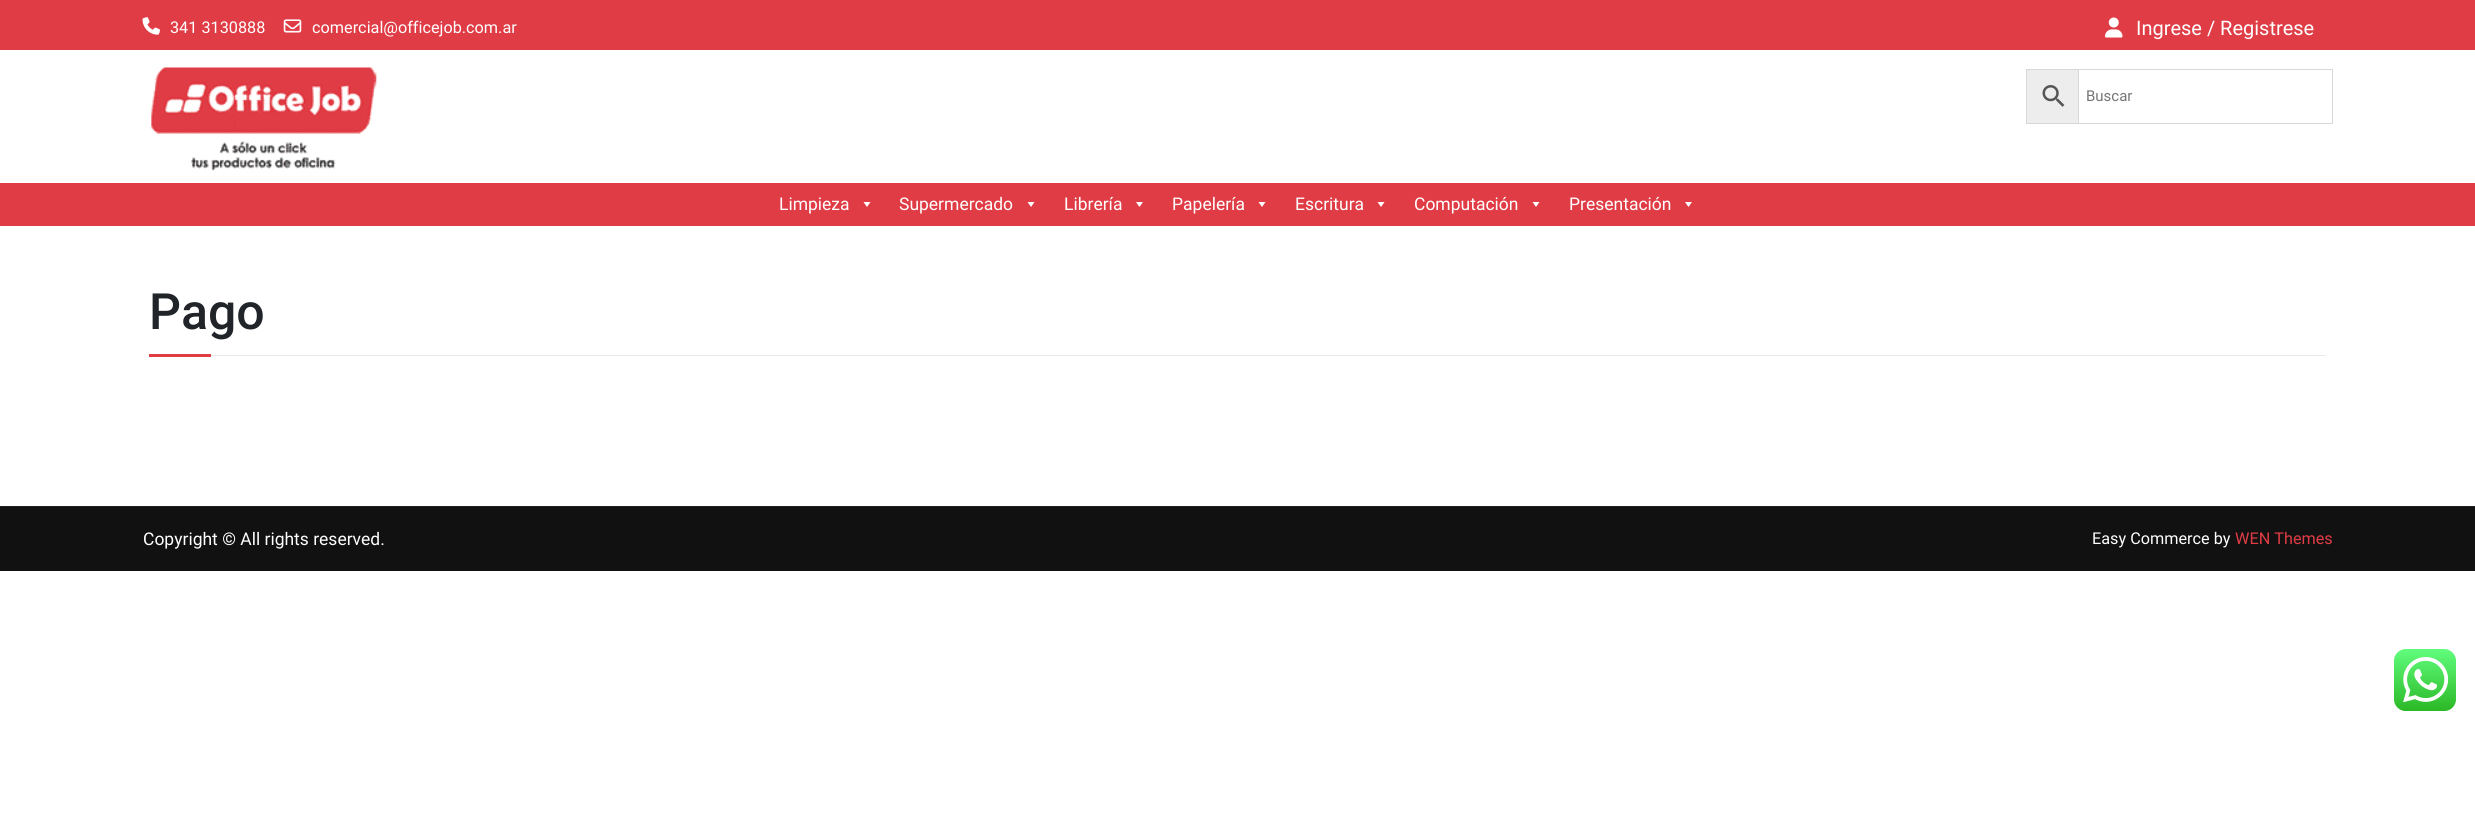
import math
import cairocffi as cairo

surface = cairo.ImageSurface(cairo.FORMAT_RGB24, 2475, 836)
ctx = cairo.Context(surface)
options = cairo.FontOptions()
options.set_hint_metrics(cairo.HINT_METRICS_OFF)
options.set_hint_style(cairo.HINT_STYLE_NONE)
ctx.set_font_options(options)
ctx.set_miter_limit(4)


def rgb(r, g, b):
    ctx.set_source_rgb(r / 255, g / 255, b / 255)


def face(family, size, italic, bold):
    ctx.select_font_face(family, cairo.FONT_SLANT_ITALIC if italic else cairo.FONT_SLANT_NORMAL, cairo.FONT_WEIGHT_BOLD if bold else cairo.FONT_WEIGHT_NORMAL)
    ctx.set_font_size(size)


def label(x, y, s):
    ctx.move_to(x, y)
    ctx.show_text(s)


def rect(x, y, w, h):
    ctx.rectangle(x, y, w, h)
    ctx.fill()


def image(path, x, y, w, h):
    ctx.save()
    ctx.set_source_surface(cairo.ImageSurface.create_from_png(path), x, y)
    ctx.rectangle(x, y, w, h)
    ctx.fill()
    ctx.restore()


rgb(255, 255, 255)
ctx.paint()
rgb(224, 60, 69)
rect(0, 0, 2475, 50)
image('image0.png', 142, 17, 18, 18)
face('Roboto', 16.25, 0, 0)
rgb(255, 255, 255)
label(170, 33, '341 3130888')
image('image1.png', 283, 19, 19, 14)
label(312, 33, 'comercial@officejob.com.ar')
image('image2.png', 2105, 17, 18, 21)
face('Roboto', 20, 0, 0)
label(2136, 35, 'Ingrese / Registrese')
image('image3.png', 151, 67, 226, 104)
rgb(237, 237, 237)
ctx.rectangle(2026.5, 69.5, 52, 54)
ctx.fill_preserve()
rgb(216, 216, 216)
ctx.set_line_width(1)
ctx.stroke()
image('image4.png', 2042, 85, 23, 22)
ctx.rectangle(2078.5, 69.5, 254, 54)
ctx.stroke()
face('Roboto', 15, 0, 0)
rgb(117, 117, 117)
label(2086, 101, 'Buscar')
rgb(224, 60, 69)
rect(0, 183, 2475, 43)
face('Roboto', 17.5, 0, 0)
rgb(255, 255, 255)
label(779, 210, 'Limpieza')
ctx.new_path()
ctx.move_to(870.5, 202)
ctx.line_to(867, 207)
ctx.line_to(863.5, 202)
ctx.close_path()
ctx.fill()
label(899, 210, 'Supermercado')
ctx.new_path()
ctx.move_to(1034.5, 202)
ctx.line_to(1031, 207)
ctx.line_to(1027.5, 202)
ctx.close_path()
ctx.fill()
label(1064, 210, 'Librería')
ctx.new_path()
ctx.move_to(1143, 202)
ctx.line_to(1139.5, 207)
ctx.line_to(1136, 202)
ctx.close_path()
ctx.fill()
label(1172, 210, 'Papelería')
ctx.new_path()
ctx.move_to(1265.5, 202)
ctx.line_to(1262, 207)
ctx.line_to(1258.5, 202)
ctx.close_path()
ctx.fill()
label(1295, 210, 'Escritura')
ctx.new_path()
ctx.move_to(1384.5, 202)
ctx.line_to(1381, 207)
ctx.line_to(1377.5, 202)
ctx.close_path()
ctx.fill()
label(1414, 210, 'Computación')
ctx.new_path()
ctx.move_to(1539.5, 202)
ctx.line_to(1536, 207)
ctx.line_to(1532.5, 202)
ctx.close_path()
ctx.fill()
label(1569, 210, 'Presentación')
ctx.new_path()
ctx.move_to(1692, 202)
ctx.line_to(1688.5, 207)
ctx.line_to(1685, 202)
ctx.close_path()
ctx.fill()
rgb(235, 233, 235)
rect(211, 355, 2115, 1)
face('Roboto Medium', 50, 0, 0)
rgb(33, 37, 41)
label(149, 329, 'Pago')
rgb(224, 60, 69)
rect(149, 354, 62, 3)
rgb(17, 17, 17)
rect(0, 507, 2475, 64)
rgb(32, 32, 32)
rect(0, 506, 2475, 1)
face('Roboto', 17.5, 0, 0)
rgb(255, 255, 255)
label(143, 545, 'Copyright © All rights reserved.')
face('Roboto', 16.25, 0, 0)
label(2092, 544, 'Easy Commerce by')
rgb(224, 60, 69)
label(2235, 544, 'WEN Themes')
image('image5.png', 2394, 649, 62, 62)
surface.write_to_png('render.png')
